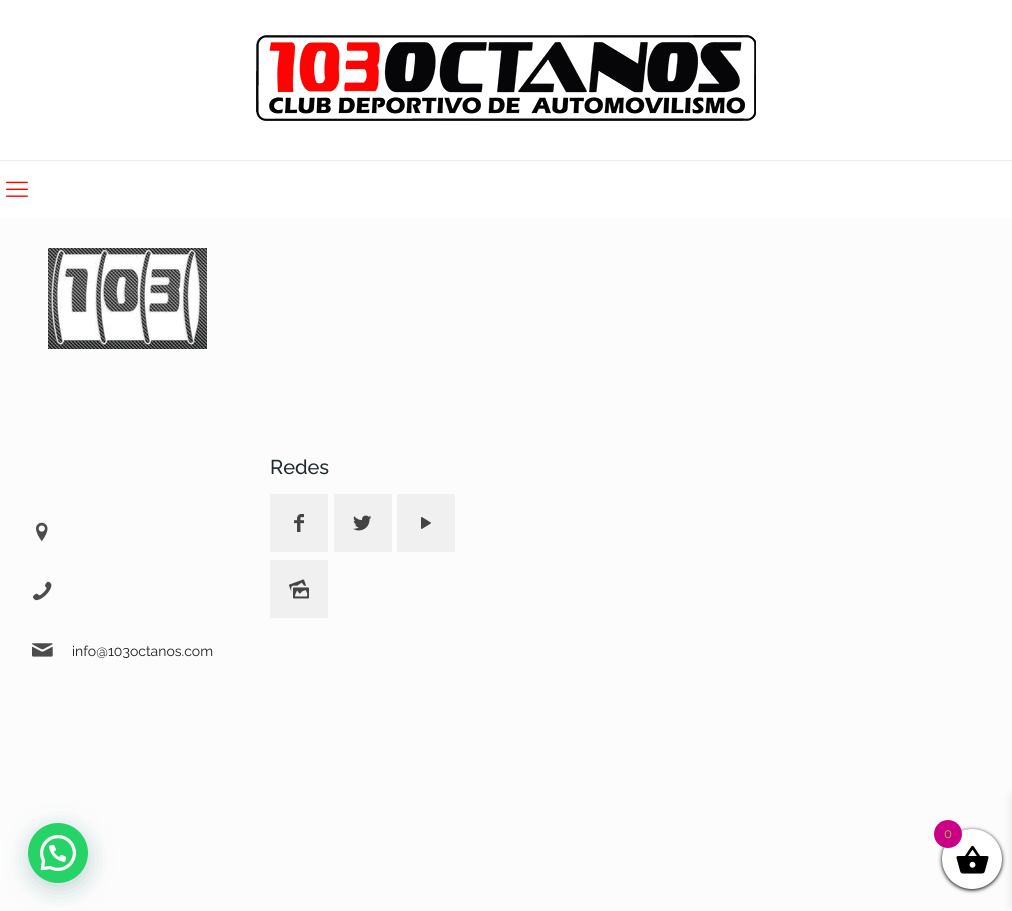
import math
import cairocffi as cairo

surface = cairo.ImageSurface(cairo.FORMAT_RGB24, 1012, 911)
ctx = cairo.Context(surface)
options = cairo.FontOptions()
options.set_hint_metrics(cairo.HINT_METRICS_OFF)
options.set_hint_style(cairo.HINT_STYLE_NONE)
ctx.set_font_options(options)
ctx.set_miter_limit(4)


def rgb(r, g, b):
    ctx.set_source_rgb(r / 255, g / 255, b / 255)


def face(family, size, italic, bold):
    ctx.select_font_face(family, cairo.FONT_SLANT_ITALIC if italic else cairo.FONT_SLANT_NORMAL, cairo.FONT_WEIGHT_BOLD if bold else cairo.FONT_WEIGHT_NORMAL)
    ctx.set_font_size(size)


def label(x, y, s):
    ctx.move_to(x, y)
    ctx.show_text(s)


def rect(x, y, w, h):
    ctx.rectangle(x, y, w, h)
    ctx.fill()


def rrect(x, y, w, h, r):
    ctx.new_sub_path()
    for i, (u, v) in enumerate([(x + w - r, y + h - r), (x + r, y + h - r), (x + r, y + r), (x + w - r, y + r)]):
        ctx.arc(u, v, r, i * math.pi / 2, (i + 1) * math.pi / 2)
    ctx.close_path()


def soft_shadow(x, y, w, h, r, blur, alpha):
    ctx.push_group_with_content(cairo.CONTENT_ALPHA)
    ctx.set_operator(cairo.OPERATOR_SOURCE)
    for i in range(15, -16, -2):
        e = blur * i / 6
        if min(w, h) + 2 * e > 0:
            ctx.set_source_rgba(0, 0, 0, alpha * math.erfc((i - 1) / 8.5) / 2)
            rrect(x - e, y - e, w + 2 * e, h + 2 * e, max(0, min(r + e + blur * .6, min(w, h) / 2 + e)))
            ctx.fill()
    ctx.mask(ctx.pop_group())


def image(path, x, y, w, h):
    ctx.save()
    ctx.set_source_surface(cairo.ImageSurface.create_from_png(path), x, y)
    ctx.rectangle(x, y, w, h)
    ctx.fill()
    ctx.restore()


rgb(252, 252, 252)
ctx.paint()
rgb(255, 255, 255)
rect(0, 0, 1012, 218)
rgb(235, 235, 235)
rect(0, 160, 1012, 1)
image('image0.png', 256, 35, 500, 86)
image('image1.png', 6, 181, 22, 16)
image('image2.png', 48, 248, 159, 101)
face('Raleway Medium', 20, 0, 0)
rgb(32, 41, 44)
label(270, 474, 'Redes')
rgb(240, 240, 240)
rect(270, 494, 58, 58)
image('image3.png', 294, 514, 10, 18)
rect(334, 494, 58, 58)
image('image4.png', 353, 515, 19, 16)
rect(397, 494, 58, 58)
image('image5.png', 421, 517, 10, 12)
rect(270, 560, 58, 58)
image('image6.png', 289, 579, 20, 20)
image('image7.png', 36, 522, 12, 19)
image('image8.png', 33, 581, 19, 20)
image('image9.png', 32, 643, 21, 14)
face('Raleway', 14, 0, 0)
rgb(30, 30, 30)
label(72, 656, 'info@103octanos.com')
rgb(7, 94, 84)
soft_shadow(29, 829, 60, 60, 30, 12, 0.24)
rgb(37, 211, 102)
ctx.arc(58, 853, 30, 0, 2 * math.pi)
ctx.fill()
image('image10.png', 40, 835, 36, 36)
rgb(0, 0, 0)
soft_shadow(942, 830, 60, 60, 30, 2, 1)
soft_shadow(1012, 797, 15, 109, 0, 5, 0.1)
rgb(255, 255, 255)
ctx.arc(972, 859, 30, 0, 2 * math.pi)
ctx.fill()
image('image11.png', 956, 845, 33, 29)
rgb(204, 0, 134)
ctx.arc(948, 834, 14, 0, 2 * math.pi)
ctx.fill()
face('Raleway', 13, 0, 0)
rgb(129, 215, 66)
label(944, 838, '0')
surface.write_to_png('render.png')
